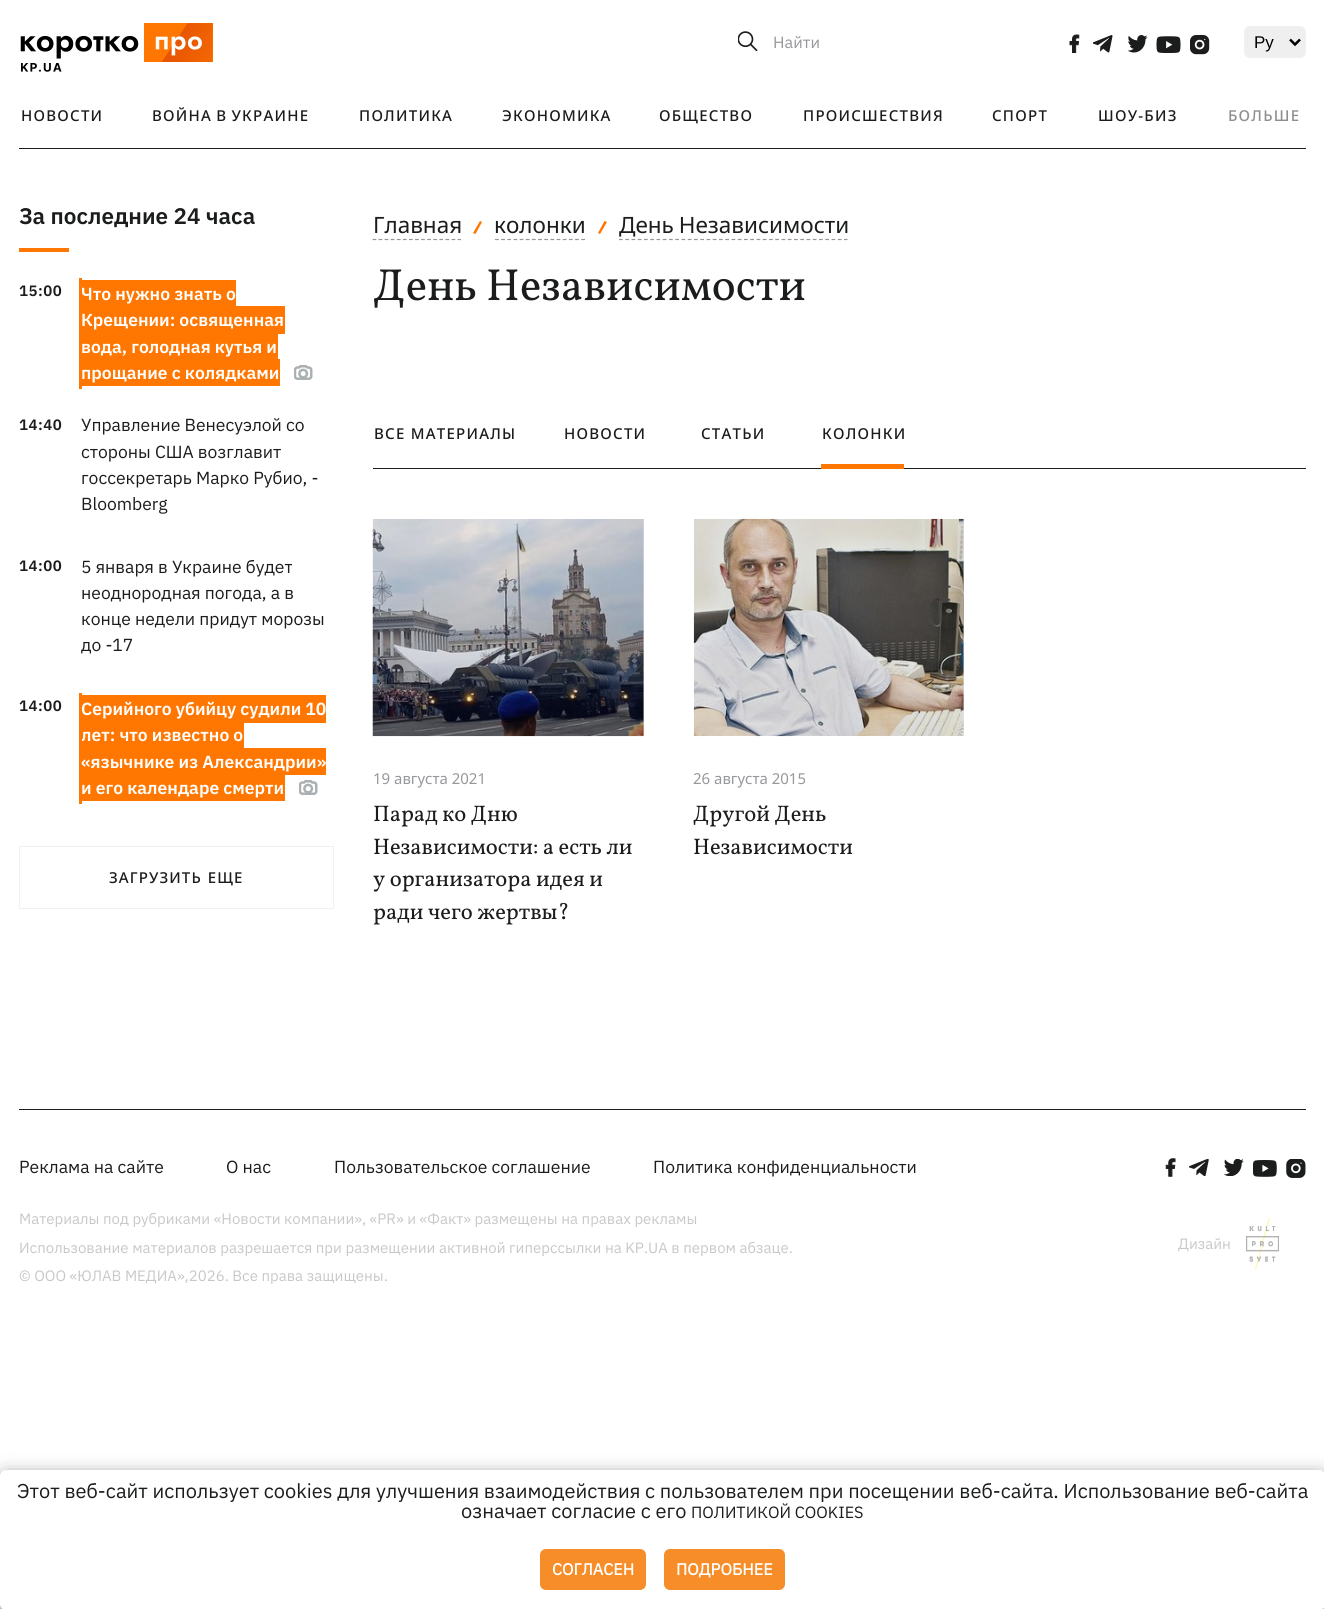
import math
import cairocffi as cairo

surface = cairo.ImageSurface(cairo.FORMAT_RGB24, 1324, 1609)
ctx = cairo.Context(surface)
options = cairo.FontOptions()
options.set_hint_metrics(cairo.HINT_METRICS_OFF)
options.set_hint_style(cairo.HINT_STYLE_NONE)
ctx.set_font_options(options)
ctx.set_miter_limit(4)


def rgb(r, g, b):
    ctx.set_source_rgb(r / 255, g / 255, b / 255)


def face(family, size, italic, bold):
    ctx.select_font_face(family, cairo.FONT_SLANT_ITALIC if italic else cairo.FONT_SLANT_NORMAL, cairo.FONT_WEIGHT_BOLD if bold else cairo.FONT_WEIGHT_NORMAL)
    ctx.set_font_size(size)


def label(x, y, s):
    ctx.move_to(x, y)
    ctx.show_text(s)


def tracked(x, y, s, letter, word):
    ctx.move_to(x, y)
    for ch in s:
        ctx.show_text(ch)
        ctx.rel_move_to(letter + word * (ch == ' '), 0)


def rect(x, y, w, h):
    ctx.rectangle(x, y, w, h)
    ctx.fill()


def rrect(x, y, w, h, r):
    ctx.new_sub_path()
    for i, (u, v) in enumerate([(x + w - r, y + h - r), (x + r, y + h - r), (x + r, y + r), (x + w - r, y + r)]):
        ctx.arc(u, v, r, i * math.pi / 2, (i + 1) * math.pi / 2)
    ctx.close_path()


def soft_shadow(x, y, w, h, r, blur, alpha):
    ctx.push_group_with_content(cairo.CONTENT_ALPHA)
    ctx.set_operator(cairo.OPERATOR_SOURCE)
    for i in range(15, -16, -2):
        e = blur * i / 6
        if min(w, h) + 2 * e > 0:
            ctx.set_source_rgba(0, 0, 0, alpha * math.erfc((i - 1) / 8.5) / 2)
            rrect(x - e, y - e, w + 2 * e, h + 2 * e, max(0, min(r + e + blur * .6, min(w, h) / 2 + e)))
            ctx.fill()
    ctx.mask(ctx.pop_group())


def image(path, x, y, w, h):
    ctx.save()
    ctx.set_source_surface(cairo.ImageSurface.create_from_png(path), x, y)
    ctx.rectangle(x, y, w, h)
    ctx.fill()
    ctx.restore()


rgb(255, 255, 255)
ctx.paint()
rgb(230, 230, 230)
rect(963, 519, 1, 217)
rect(643, 519, 1, 217)
image('image0.png', 20, 23, 193, 49)
image('image1.png', 738, 31, 20, 20)
face('IBM Plex Sans', 16.25, 0, 0)
rgb(150, 151, 155)
label(773, 48, 'Найти')
image('image2.png', 1069, 34, 11, 19)
image('image3.png', 1093, 35, 20, 18)
image('image4.png', 1128, 35, 20, 18)
image('image5.png', 1156, 36, 25, 17)
image('image6.png', 1190, 35, 20, 20)
rgb(239, 239, 239)
rrect(1244.5, 26.5, 61, 31, 5.5)
ctx.fill_preserve()
rgb(240, 241, 242)
ctx.set_line_width(1)
ctx.stroke()
ctx.new_path()
ctx.move_to(1290, 39.5)
ctx.line_to(1295, 44.5)
ctx.line_to(1300, 39.5)
rgb(0, 0, 0)
ctx.set_line_width(2.5)
ctx.stroke()
face('Liberation Sans', 17, 0, 0)
label(1254, 48, 'Ру')
rgb(27, 28, 28)
rect(19, 148, 1287, 1)
face('Noto Sans Medium', 15, 0, 0)
tracked(21, 121, 'НОВОСТИ', 1.25, 0)
tracked(152, 121, 'ВОЙНА В УКРАИНЕ', 1.25, -1)
tracked(359, 121, 'ПОЛИТИКА', 1.25, 0)
tracked(502, 121, 'ЭКОНОМИКА', 1.25, 0)
tracked(659, 121, 'ОБЩЕСТВО', 1.25, 0)
tracked(803, 121, 'ПРОИСШЕСТВИЯ', 1.25, 0)
tracked(992, 121, 'СПОРТ', 1.25, 0)
tracked(1098, 121, 'ШОУ-БИЗ', 1.25, 0)
rgb(141, 142, 142)
tracked(1228, 121, 'БОЛЬШЕ', 1.25, 0)
face('IBM Plex Sans SemiBold', 22.5, 0, 0)
rgb(27, 28, 28)
label(19, 224, 'За последние 24 часа')
rgb(255, 119, 0)
rect(19, 248, 50, 4)
face('IBM Plex Sans SemiBold', 15, 0, 0)
rgb(27, 28, 28)
tracked(19, 296, '15:00', 0.5, 0)
rgb(255, 119, 0)
rect(82, 280, 154, 26)
face('IBM Plex Sans SemiBold', 17.5, 0, 0)
rgb(255, 255, 255)
label(81, 300, 'Что нужно знать о')
rgb(255, 119, 0)
rect(82, 306, 203, 28)
rgb(255, 255, 255)
label(81, 326, 'Крещении: освященная')
rgb(255, 119, 0)
rect(79, 278, 3, 111)
rect(82, 334, 196, 25)
rgb(255, 255, 255)
label(81, 353, 'вода, голодная кутья и')
rgb(255, 119, 0)
rect(82, 359, 198, 27)
rgb(255, 255, 255)
label(81, 379, 'прощание с колядками')
image('image7.png', 294, 365, 19, 15)
face('IBM Plex Sans SemiBold', 15, 0, 0)
rgb(27, 28, 28)
tracked(19, 430, '14:40', 0.5, 0)
face('IBM Plex Sans', 17.5, 0, 0)
label(81, 431, 'Управление Венесуэлой со')
label(81, 458, 'стороны США возглавит')
label(81, 484, 'госсекретарь Марко Рубио, -')
label(81, 510, 'Bloomberg')
face('IBM Plex Sans SemiBold', 15, 0, 0)
tracked(19, 571, '14:00', 0.5, 0)
face('IBM Plex Sans', 17.5, 0, 0)
label(81, 573, '5 января в Украине будет')
label(81, 599, 'неоднородная погода, а в')
label(81, 625, 'конце недели придут морозы')
label(81, 651, 'до -17')
face('IBM Plex Sans SemiBold', 15, 0, 0)
tracked(19, 711, '14:00', 0.5, 0)
rgb(255, 119, 0)
rect(79, 693, 3, 111)
rect(82, 695, 244, 28)
rect(82, 723, 162, 25)
rect(82, 748, 244, 27)
rect(82, 775, 203, 26)
face('IBM Plex Sans SemiBold', 17.5, 0, 0)
rgb(255, 255, 255)
label(81, 715, 'Серийного убийцу судили 10')
label(81, 741, 'лет: что известно о')
rgb(255, 119, 0)
rect(81, 739, 1, 3)
rgb(255, 255, 255)
label(81, 768, '«язычнике из Александрии»')
label(81, 794, 'и его календаре смерти')
image('image7.png', 299, 780, 19, 15)
ctx.rectangle(19.5, 846.5, 314, 62)
rgb(240, 241, 242)
ctx.set_line_width(1)
ctx.stroke()
face('Noto Sans Medium', 15, 0, 0)
rgb(27, 28, 28)
tracked(109, 883, 'ЗАГРУЗИТЬ ЕЩЕ', 1.1, 1)
face('Noto Sans', 22.5, 0, 0)
label(373, 233, 'Главная')
ctx.new_path()
ctx.move_to(372.5, 239.5)
ctx.line_to(461, 239.5)
rgb(150, 151, 155)
ctx.set_line_width(1.2)
ctx.set_dash([3.75, 2.33])
ctx.stroke()
rgb(255, 119, 0)
ctx.new_path()
ctx.move_to(473, 233)
ctx.line_to(480, 221)
ctx.line_to(482, 222)
ctx.line_to(475.5, 234)
ctx.close_path()
ctx.fill()
rgb(27, 28, 28)
label(494, 233, 'колонки')
ctx.new_path()
ctx.move_to(495, 239.5)
ctx.line_to(585, 239.5)
rgb(150, 151, 155)
ctx.set_dash([3.75, 2.41])
ctx.stroke()
rgb(255, 119, 0)
ctx.new_path()
ctx.move_to(598, 233)
ctx.line_to(604.5, 221)
ctx.line_to(607, 222)
ctx.line_to(600, 234)
ctx.close_path()
ctx.fill()
rgb(27, 28, 28)
tracked(619, 233, 'День Независимости', 0, -1)
ctx.new_path()
ctx.move_to(619, 239.5)
ctx.line_to(847.5, 239.5)
rgb(150, 151, 155)
ctx.set_dash([3.75, 2.5])
ctx.stroke()
face('Vollkorn', 45, 0, 0)
rgb(27, 28, 28)
label(373, 300, 'День Независимости')
face('Noto Sans Medium', 15, 0, 0)
tracked(374, 439, 'ВСЕ МАТЕРИАЛЫ', 1.25, 0)
tracked(564, 439, 'НОВОСТИ', 1.25, 0)
tracked(701, 439, 'СТАТЬИ', 1.25, 0)
tracked(822, 439, 'КОЛОНКИ', 1.25, 0)
rect(373, 468, 933, 1)
rgb(255, 119, 0)
rect(821, 464, 83, 5)
image('image8.png', 372, 519, 272, 218)
face('Noto Sans', 15, 0, 0)
rgb(150, 151, 155)
label(373, 784, '19 августа 2021')
face('Vollkorn', 22.5, 0, 0)
rgb(27, 28, 28)
label(373, 821, 'Парад ко Дню')
label(373, 854, 'Независимости: а есть ли')
label(373, 886, 'у организатора идея и')
label(373, 919, 'ради чего жертвы?')
image('image9.png', 693, 518, 271, 219)
face('Noto Sans', 15, 0, 0)
rgb(150, 151, 155)
label(693, 784, '26 августа 2015')
face('Vollkorn', 22.5, 0, 0)
rgb(27, 28, 28)
label(693, 821, 'Другой День')
label(693, 854, 'Независимости')
rect(19, 1109, 1287, 1)
face('IBM Plex Sans', 17.5, 0, 0)
label(19, 1173, 'Реклама на сайте')
label(226, 1173, 'О нас')
label(334, 1173, 'Пользовательское соглашение')
label(653, 1173, 'Политика конфиденциальности')
image('image10.png', 1165, 1158, 11, 19)
image('image11.png', 1189, 1159, 20, 17)
image('image12.png', 1224, 1159, 20, 17)
image('image13.png', 1253, 1160, 24, 17)
image('image14.png', 1286, 1159, 20, 19)
face('IBM Plex Sans', 15, 0, 0)
rgb(200, 200, 200)
label(19, 1224, 'Материалы под рубриками «Новости компании», «PR» и «Факт» размещены на правах рекламы')
label(19, 1253, 'Использование материалов разрешается при размещении активной гиперссылки на KP.UA в первом абзаце.')
label(19, 1281, '© ООО «ЮЛАВ МЕДИА»,2026. Все права защищены.')
label(1178, 1249, 'Дизайн')
image('image15.png', 1246, 1217, 33, 54)
rgb(0, 0, 0)
soft_shadow(0, 1476, 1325, 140, 6, 9.5, 0.5)
rgb(255, 255, 255)
rrect(0, 1470, 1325, 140, 6)
ctx.fill()
face('IBM Plex Sans', 20, 0, 0)
rgb(27, 28, 28)
label(17, 1498, 'Этот веб-сайт использует cookies для улучшения взаимодействия с пользователем при посещении веб-сайта. Использование веб-сайта')
label(461, 1518, 'означает согласие с его')
face('IBM Plex Sans', 16.25, 0, 0)
label(691, 1518, 'ПОЛИТИКОЙ COOKIES')
rgb(246, 141, 41)
rrect(541.5, 1550.5, 103, 38, 4.5)
ctx.fill_preserve()
ctx.set_line_width(3)
ctx.set_dash([])
ctx.stroke()
face('IBM Plex Sans', 16.25, 0, 1)
rgb(255, 255, 255)
label(552, 1575, 'СОГЛАСЕН')
rgb(246, 141, 41)
rrect(665.5, 1550.5, 118, 38, 4.5)
ctx.fill_preserve()
ctx.stroke()
rgb(255, 255, 255)
label(676, 1575, 'ПОДРОБНЕЕ')
surface.write_to_png('render.png')
